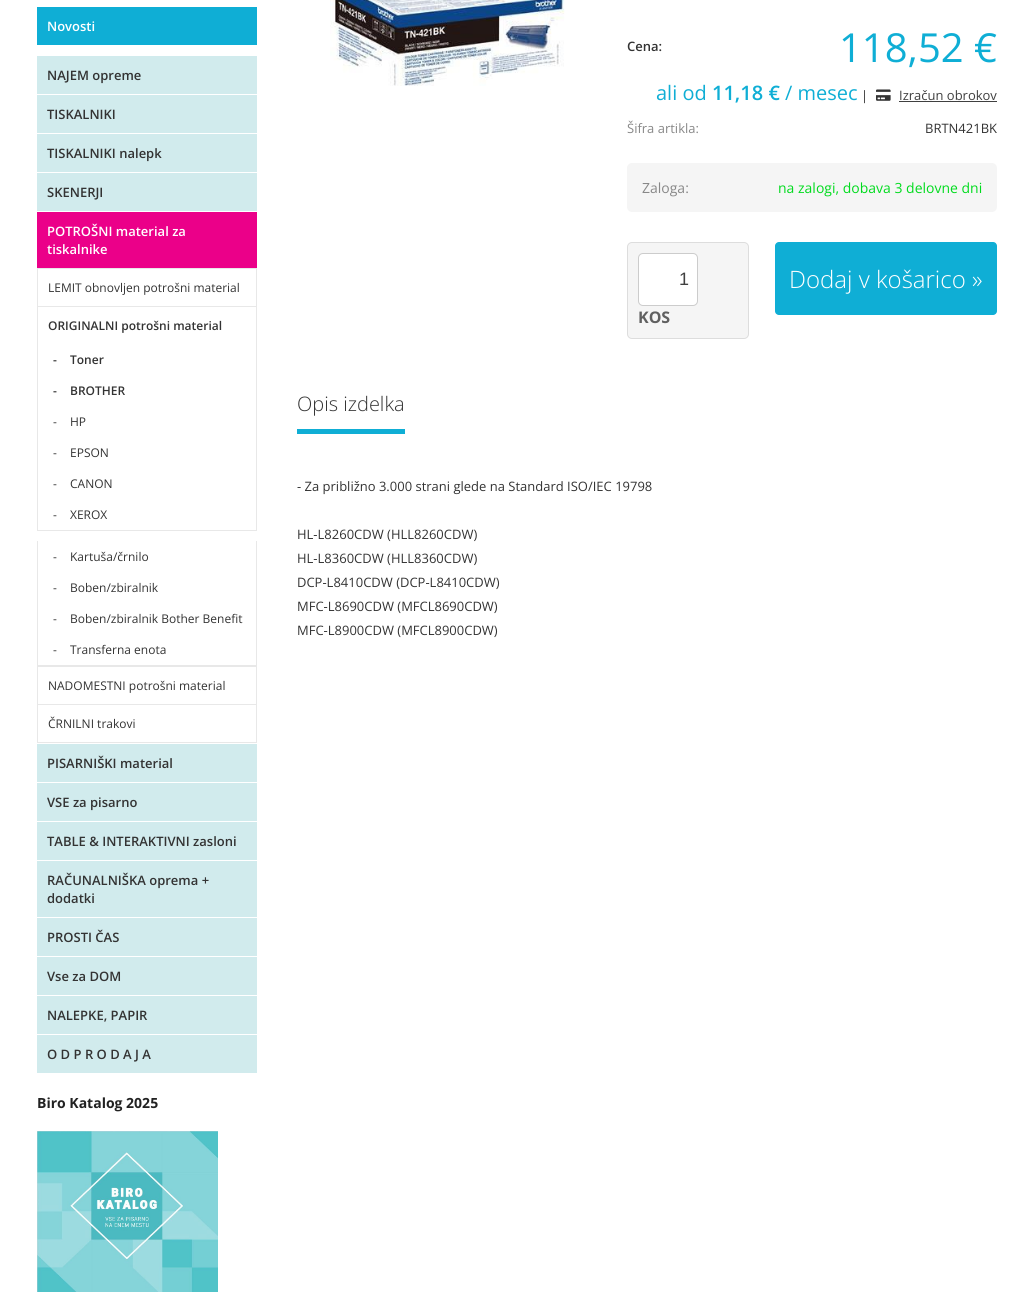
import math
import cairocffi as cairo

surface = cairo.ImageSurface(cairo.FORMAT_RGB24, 1034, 1292)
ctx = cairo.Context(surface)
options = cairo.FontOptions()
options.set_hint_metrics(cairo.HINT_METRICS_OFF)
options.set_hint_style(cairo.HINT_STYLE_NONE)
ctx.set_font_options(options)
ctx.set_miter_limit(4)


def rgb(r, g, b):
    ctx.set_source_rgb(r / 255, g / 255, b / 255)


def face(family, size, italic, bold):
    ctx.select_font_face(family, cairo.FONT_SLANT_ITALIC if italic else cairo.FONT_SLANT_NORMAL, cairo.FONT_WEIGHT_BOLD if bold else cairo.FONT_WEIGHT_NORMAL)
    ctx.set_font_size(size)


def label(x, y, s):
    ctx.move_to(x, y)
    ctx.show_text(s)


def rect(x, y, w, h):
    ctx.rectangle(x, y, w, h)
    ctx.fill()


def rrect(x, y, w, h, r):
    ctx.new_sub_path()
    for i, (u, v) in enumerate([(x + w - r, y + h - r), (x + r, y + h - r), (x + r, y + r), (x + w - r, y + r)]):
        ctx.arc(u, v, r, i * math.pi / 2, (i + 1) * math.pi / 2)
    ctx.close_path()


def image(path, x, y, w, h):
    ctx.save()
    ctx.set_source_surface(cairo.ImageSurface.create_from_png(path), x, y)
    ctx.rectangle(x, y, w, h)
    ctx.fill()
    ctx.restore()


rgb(255, 255, 255)
ctx.paint()
rgb(15, 174, 213)
rect(37, 7, 220, 38)
face('Open Sans SemiBold', 13, 0, 0)
rgb(255, 255, 255)
label(47, 31, 'Novosti')
rgb(209, 235, 237)
rect(37, 56, 220, 38)
rgb(51, 51, 51)
label(47, 80, 'NAJEM opreme')
rgb(209, 235, 237)
rect(37, 95, 220, 38)
rgb(51, 51, 51)
label(47, 119, 'TISKALNIKI')
rgb(209, 235, 237)
rect(37, 134, 220, 38)
rgb(51, 51, 51)
label(47, 158, 'TISKALNIKI nalepk')
rgb(209, 235, 237)
rect(37, 173, 220, 38)
rgb(51, 51, 51)
label(47, 197, 'SKENERJI')
rgb(235, 0, 137)
rect(37, 212, 220, 56)
rgb(255, 255, 255)
label(47, 236, 'POTROŠNI material za')
label(47, 254, 'tiskalnike')
rgb(232, 232, 232)
rect(37, 268, 220, 1)
rect(256, 269, 1, 37)
rect(37, 269, 1, 37)
face('Open Sans', 12, 0, 0)
rgb(51, 51, 51)
label(48, 292, 'LEMIT obnovljen potrošni material')
rgb(232, 232, 232)
rect(37, 306, 220, 1)
rect(256, 307, 1, 224)
rect(37, 307, 1, 192)
face('Open Sans SemiBold', 12, 0, 0)
rgb(51, 51, 51)
label(48, 330, 'ORIGINALNI potrošni material')
label(53, 364, '-')
label(70, 364, 'Toner')
label(53, 395, '-')
label(70, 395, 'BROTHER')
face('Open Sans', 12, 0, 0)
label(53, 426, '-')
label(70, 426, 'HP')
label(53, 457, '-')
label(70, 457, 'EPSON')
label(53, 488, '-')
label(70, 488, 'CANON')
rgb(232, 232, 232)
rect(37, 530, 220, 1)
rect(37, 499, 1, 32)
rgb(51, 51, 51)
label(53, 519, '-')
label(70, 519, 'XEROX')
rgb(232, 232, 232)
rect(256, 541, 1, 125)
rect(37, 541, 1, 93)
rgb(51, 51, 51)
label(53, 561, '-')
label(70, 561, 'Kartuša/črnilo')
label(53, 592, '-')
label(70, 592, 'Boben/zbiralnik')
label(53, 623, '-')
label(70, 623, 'Boben/zbiralnik Bother Benefit')
rgb(232, 232, 232)
rect(37, 665, 220, 2)
rect(37, 634, 1, 32)
rgb(51, 51, 51)
label(53, 654, '-')
label(70, 654, 'Transferna enota')
rgb(232, 232, 232)
rect(256, 667, 1, 37)
rect(37, 667, 1, 37)
rgb(51, 51, 51)
label(48, 690, 'NADOMESTNI potrošni material')
rgb(232, 232, 232)
rect(37, 704, 220, 1)
rect(256, 705, 1, 38)
rect(37, 742, 220, 1)
rect(37, 705, 1, 38)
rgb(51, 51, 51)
label(48, 728, 'ČRNILNI trakovi')
rgb(209, 235, 237)
rect(37, 744, 220, 38)
face('Open Sans SemiBold', 13, 0, 0)
rgb(51, 51, 51)
label(47, 768, 'PISARNIŠKI material')
rgb(209, 235, 237)
rect(37, 783, 220, 38)
rgb(51, 51, 51)
label(47, 807, 'VSE za pisarno')
rgb(209, 235, 237)
rect(37, 822, 220, 38)
rgb(51, 51, 51)
label(47, 846, 'TABLE & INTERAKTIVNI zasloni')
rgb(209, 235, 237)
rect(37, 861, 220, 56)
rgb(51, 51, 51)
label(47, 885, 'RAČUNALNIŠKA oprema +')
label(47, 903, 'dodatki')
rgb(209, 235, 237)
rect(37, 918, 220, 38)
rgb(51, 51, 51)
label(47, 942, 'PROSTI ČAS')
rgb(209, 235, 237)
rect(37, 957, 220, 38)
rgb(51, 51, 51)
label(47, 981, 'Vse za DOM')
rgb(209, 235, 237)
rect(37, 996, 220, 38)
rgb(51, 51, 51)
label(47, 1020, 'NALEPKE, PAPIR')
rgb(209, 235, 237)
rect(37, 1035, 220, 38)
rgb(51, 51, 51)
label(47, 1059, 'O D P R O D A J A')
face('Open Sans', 14, 0, 1)
rgb(34, 34, 34)
label(37, 1108, 'Biro Katalog 2025')
image('image0.png', 37, 1131, 181, 161)
image('image1.png', 330, 0, 235, 86)
face('Open Sans SemiBold', 13, 0, 0)
rgb(51, 51, 51)
label(627, 51, 'Cena:')
face('Open Sans', 40, 0, 0)
rgb(15, 174, 213)
label(839, 62, '118,52 €')
face('Open Sans', 20, 0, 0)
label(656, 100, 'ali od')
face('Open Sans SemiBold', 20, 0, 0)
label(712, 100, '11,18 €')
face('Open Sans', 20, 0, 0)
label(785, 100, '/ mesec')
face('Open Sans', 13, 0, 0)
rgb(51, 51, 51)
label(861, 100, '|')
image('image2.png', 876, 89, 15, 12)
rgb(64, 64, 64)
label(899, 100, 'Izračun obrokov')
rect(899, 101, 98, 1)
rgb(136, 136, 136)
label(627, 133, 'Šifra artikla:')
rgb(51, 51, 51)
label(925, 133, 'BRTN421BK')
rgb(245, 245, 245)
rrect(627, 163, 370, 49, 5)
ctx.fill()
face('Open Sans', 14, 0, 0)
rgb(136, 136, 136)
label(642, 193, 'Zaloga:')
rgb(0, 219, 29)
label(778, 193, 'na zalogi, dobava 3 delovne dni')
rgb(245, 245, 245)
rrect(627.5, 242.5, 121, 96, 4.5)
ctx.fill_preserve()
rgb(221, 221, 221)
ctx.set_line_width(1)
ctx.stroke()
rgb(255, 255, 255)
rrect(638.5, 253.5, 59, 52, 4.5)
ctx.fill_preserve()
rgb(204, 204, 204)
ctx.stroke()
face('Liberation Sans', 18, 0, 0)
rgb(64, 64, 64)
label(679, 285, '1')
face('Open Sans', 16, 0, 1)
rgb(96, 96, 96)
label(638, 323, 'KOS')
rgb(15, 174, 213)
rrect(775, 242, 222, 73, 4)
ctx.fill()
face('Open Sans Light', 24, 0, 0)
rgb(255, 255, 255)
label(789, 288, 'Dodaj v košarico »')
rgb(15, 174, 213)
rect(297, 429, 108, 5)
face('Open Sans Light', 20, 0, 0)
rgb(51, 51, 51)
label(297, 411, 'Opis izdelka')
face('Open Sans', 13, 0, 0)
label(297, 491, '- Za približno 3.000 strani glede na Standard ISO/IEC 19798')
label(297, 539, 'HL-L8260CDW (HLL8260CDW)')
label(297, 563, 'HL-L8360CDW (HLL8360CDW)')
label(297, 587, 'DCP-L8410CDW (DCP-L8410CDW)')
label(297, 611, 'MFC-L8690CDW (MFCL8690CDW)')
label(297, 635, 'MFC-L8900CDW (MFCL8900CDW)')
surface.write_to_png('render.png')
